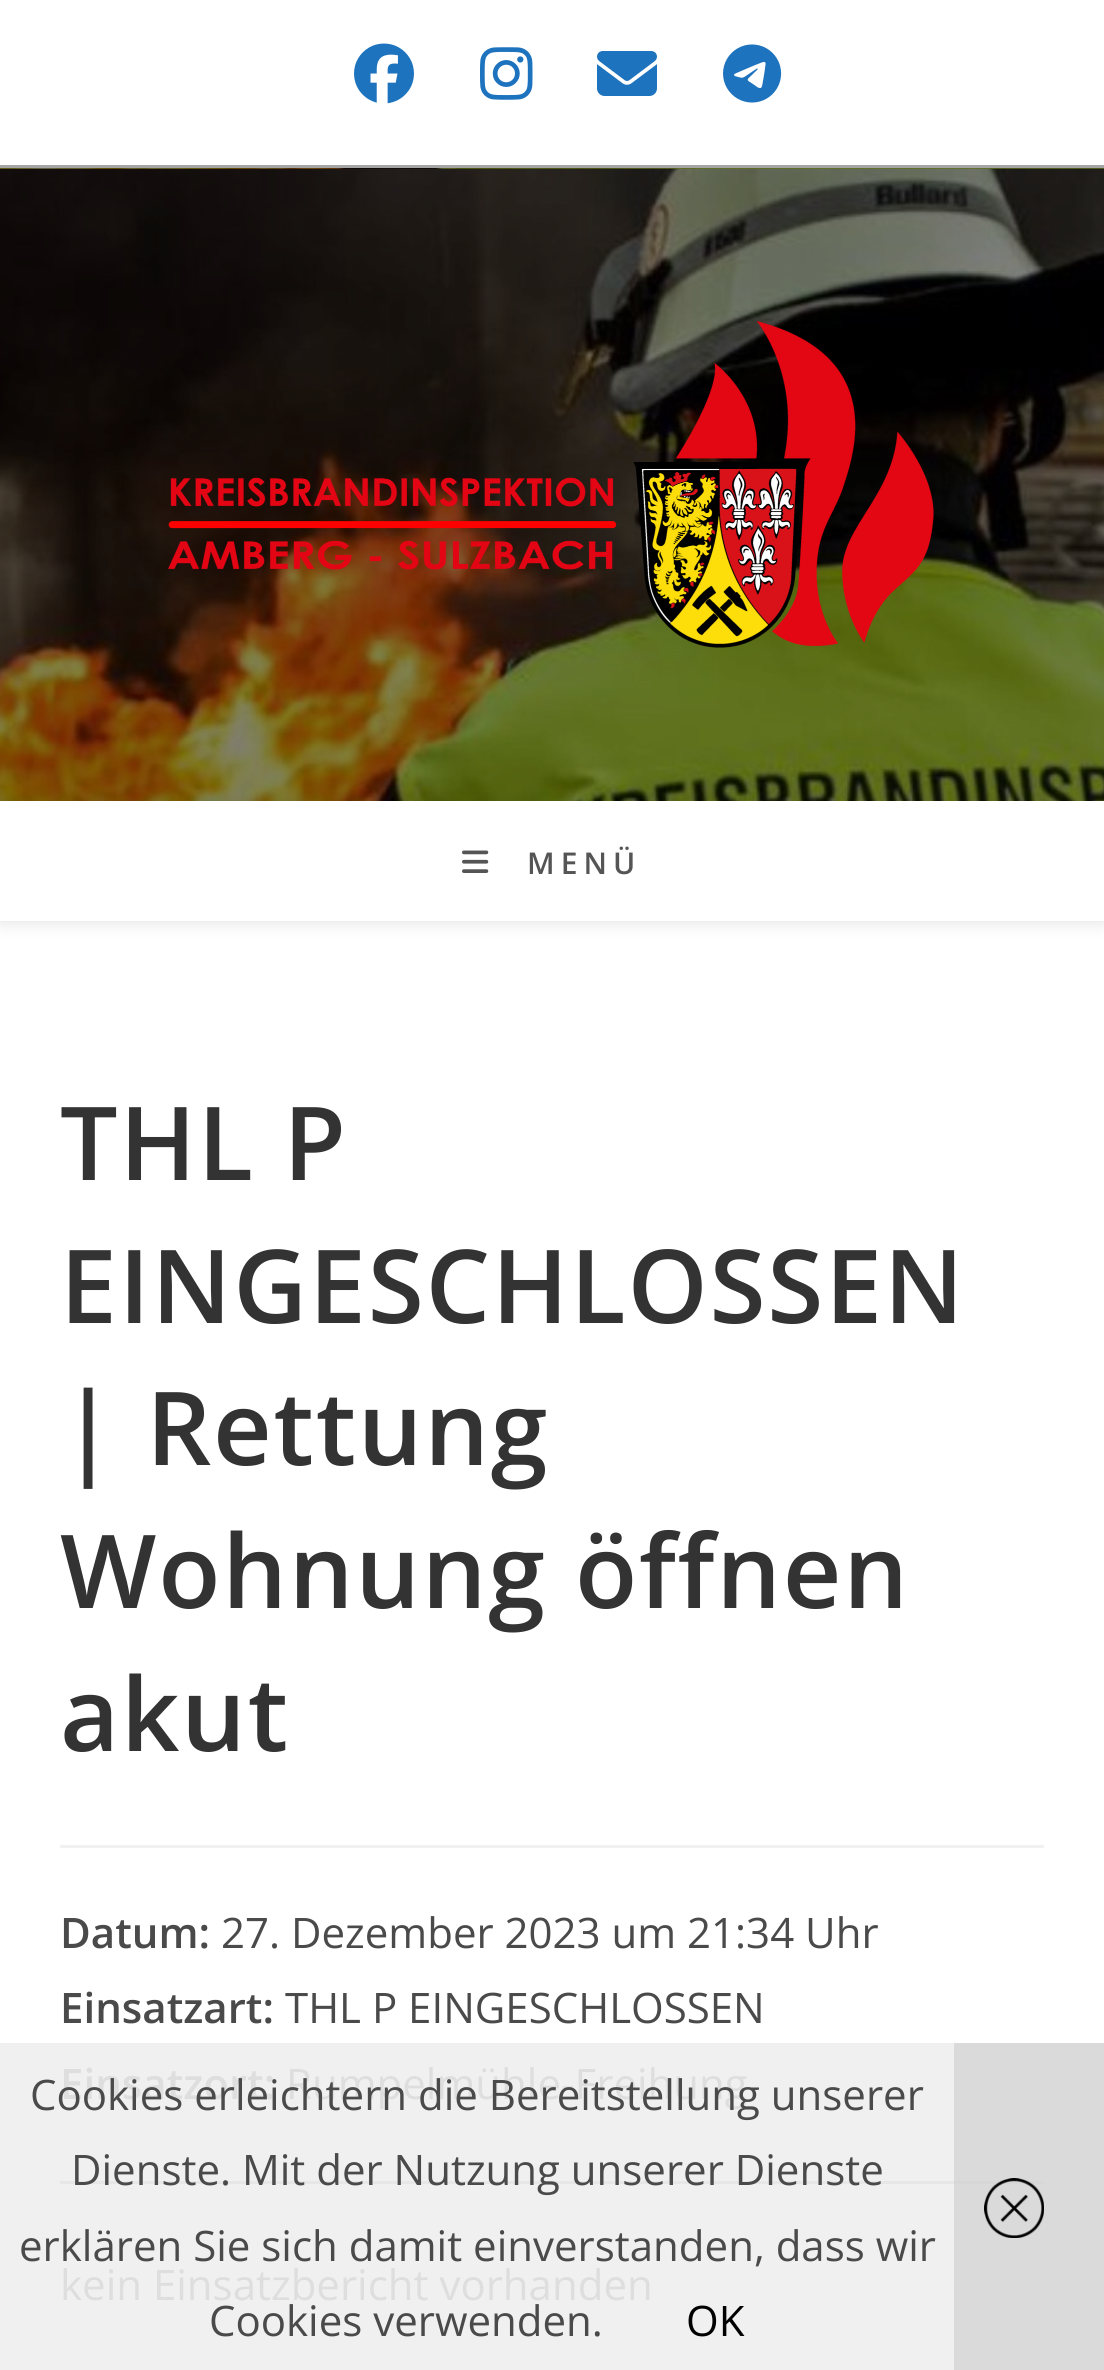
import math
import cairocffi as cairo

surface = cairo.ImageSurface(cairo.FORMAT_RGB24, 1104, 2370)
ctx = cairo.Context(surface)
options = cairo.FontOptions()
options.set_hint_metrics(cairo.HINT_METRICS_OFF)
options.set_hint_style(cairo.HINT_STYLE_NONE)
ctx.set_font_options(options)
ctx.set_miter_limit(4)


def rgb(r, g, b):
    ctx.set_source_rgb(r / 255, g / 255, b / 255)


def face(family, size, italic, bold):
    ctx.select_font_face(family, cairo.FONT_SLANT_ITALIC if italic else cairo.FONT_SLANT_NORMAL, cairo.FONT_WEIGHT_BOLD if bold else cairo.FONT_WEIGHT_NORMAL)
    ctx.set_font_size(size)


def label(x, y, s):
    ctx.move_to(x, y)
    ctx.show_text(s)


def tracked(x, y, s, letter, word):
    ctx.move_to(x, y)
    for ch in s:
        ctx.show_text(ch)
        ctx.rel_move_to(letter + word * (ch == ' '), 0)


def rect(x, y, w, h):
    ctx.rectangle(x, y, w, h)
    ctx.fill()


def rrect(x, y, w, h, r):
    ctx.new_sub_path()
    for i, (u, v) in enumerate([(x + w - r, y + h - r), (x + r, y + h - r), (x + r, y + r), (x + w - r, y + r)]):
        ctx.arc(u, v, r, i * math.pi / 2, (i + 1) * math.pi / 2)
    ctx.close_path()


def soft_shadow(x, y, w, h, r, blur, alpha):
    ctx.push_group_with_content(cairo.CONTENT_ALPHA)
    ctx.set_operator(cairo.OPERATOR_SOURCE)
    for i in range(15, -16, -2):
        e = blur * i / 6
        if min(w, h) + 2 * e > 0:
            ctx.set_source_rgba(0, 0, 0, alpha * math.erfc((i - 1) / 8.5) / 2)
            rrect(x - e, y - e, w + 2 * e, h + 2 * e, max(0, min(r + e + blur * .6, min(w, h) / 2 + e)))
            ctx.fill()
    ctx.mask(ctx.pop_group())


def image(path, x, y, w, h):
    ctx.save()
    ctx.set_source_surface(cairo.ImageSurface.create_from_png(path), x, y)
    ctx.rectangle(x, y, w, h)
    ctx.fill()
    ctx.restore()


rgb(255, 255, 255)
ctx.paint()
rgb(240, 240, 240)
rect(0, 2043, 954, 327)
rgb(218, 218, 218)
rect(954, 2043, 150, 327)
rgb(165, 165, 165)
rect(0, 165, 1104, 3)
image('image0.png', 354, 43, 60, 61)
image('image1.png', 480, 47, 53, 53)
image('image2.png', 597, 51, 60, 45)
image('image3.png', 723, 44, 59, 59)
image('image4.png', 0, 168, 1104, 633)
image('image5.png', 168, 321, 766, 327)
rgb(0, 0, 0)
soft_shadow(0, 804, 1104, 120, 0, 7.5, 0.1)
rgb(255, 255, 255)
rect(0, 801, 1104, 120)
image('image6.png', 462, 850, 27, 23)
face('Open Sans SemiBold', 30, 0, 0)
rgb(85, 85, 85)
tracked(527, 874, 'MENÜ', 6, 0)
rgb(241, 241, 241)
rect(60, 1845, 984, 3)
face('Open Sans SemiBold', 102, 0, 0)
rgb(51, 51, 51)
tracked(60, 1180, 'THL P', 1.75, 0)
tracked(60, 1323, 'EINGESCHLOSSEN', 1.75, 0)
tracked(60, 1465, '| Rettung', 1.75, 0)
tracked(60, 1608, 'Wohnung öffnen', 1.75, 0)
tracked(60, 1751, 'akut', 1.75, 0)
face('Open Sans SemiBold', 42, 0, 0)
rgb(74, 74, 74)
label(60, 1948, 'Datum:')
face('Open Sans', 42, 0, 0)
label(221, 1948, '27. Dezember 2023 um 21:34 Uhr')
face('Open Sans SemiBold', 42, 0, 0)
label(60, 2023, 'Einsatzart:')
face('Open Sans', 42, 0, 0)
label(285, 2023, 'THL P EINGESCHLOSSEN')
face('Open Sans SemiBold', 42, 0, 0)
rgb(222, 222, 222)
label(60, 2099, 'Einsatzort:')
face('Open Sans', 42, 0, 0)
label(286, 2099, 'Rumpelmühle-Freihung')
rgb(231, 231, 231)
rect(60, 2181, 894, 3)
rgb(215, 215, 215)
rect(954, 2181, 90, 3)
rgb(222, 222, 222)
label(60, 2300, 'kein Einsatzbericht vorhanden')
rgb(74, 74, 74)
label(30, 2110, 'Cookies erleichtern die Bereitstellung unserer')
label(71, 2185, 'Dienste. Mit der Nutzung unserer Dienste')
label(19, 2261, 'erklären Sie sich damit einverstanden, dass wir')
label(209, 2336, 'Cookies verwenden.')
rgb(0, 0, 0)
label(686, 2336, 'OK')
image('image7.png', 984, 2178, 60, 60)
surface.write_to_png('render.png')
